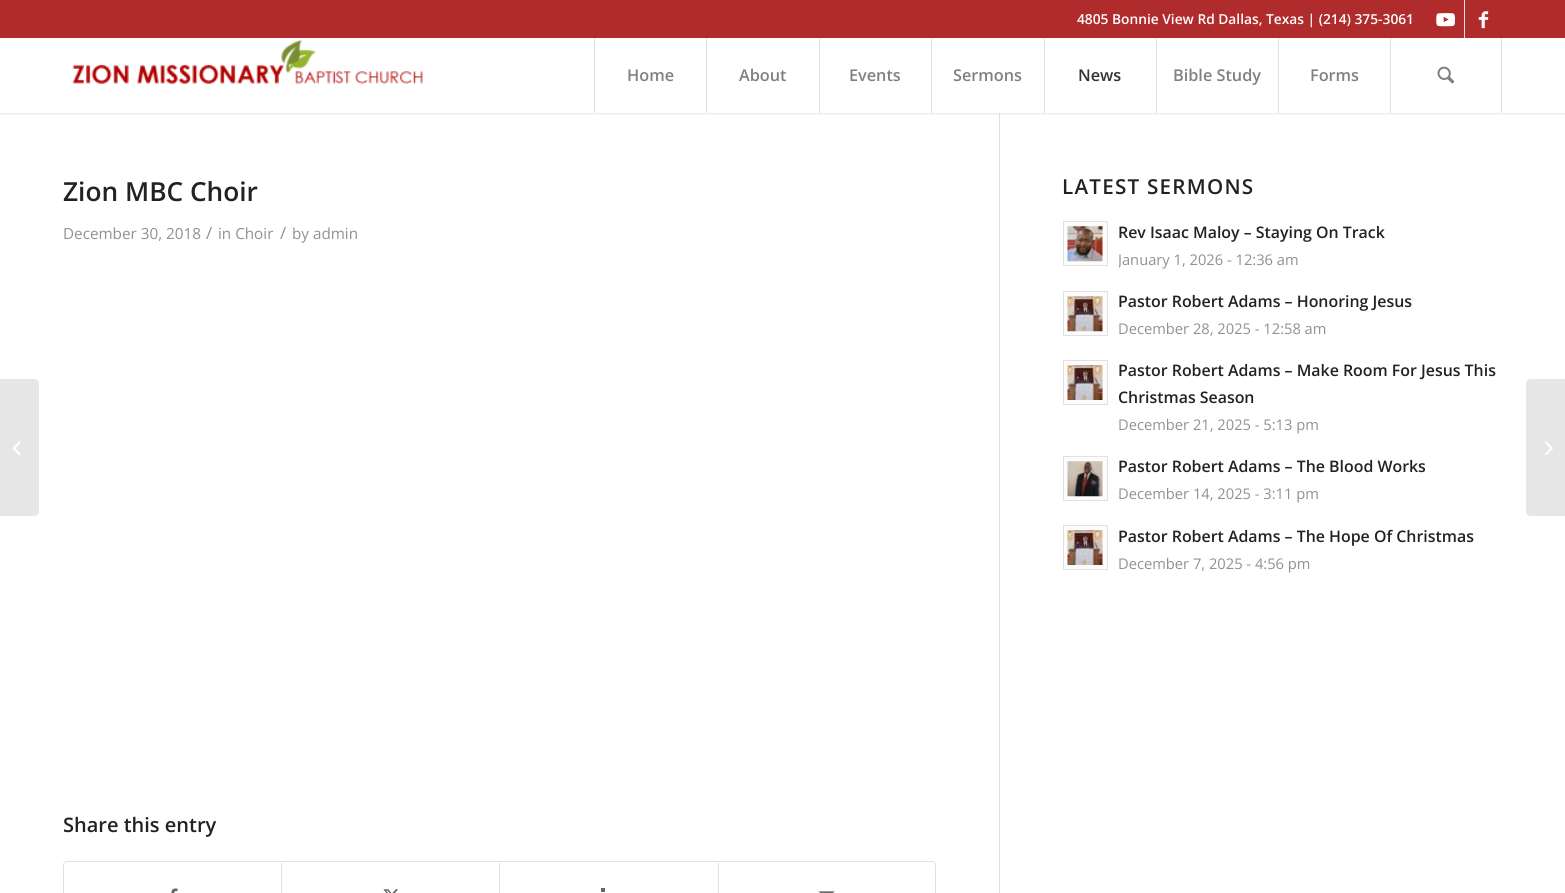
import math
import cairocffi as cairo

surface = cairo.ImageSurface(cairo.FORMAT_RGB24, 1565, 893)
ctx = cairo.Context(surface)
options = cairo.FontOptions()
options.set_hint_metrics(cairo.HINT_METRICS_OFF)
options.set_hint_style(cairo.HINT_STYLE_NONE)
ctx.set_font_options(options)
ctx.set_miter_limit(4)


def rgb(r, g, b):
    ctx.set_source_rgb(r / 255, g / 255, b / 255)


def face(family, size, italic, bold):
    ctx.select_font_face(family, cairo.FONT_SLANT_ITALIC if italic else cairo.FONT_SLANT_NORMAL, cairo.FONT_WEIGHT_BOLD if bold else cairo.FONT_WEIGHT_NORMAL)
    ctx.set_font_size(size)


def label(x, y, s):
    ctx.move_to(x, y)
    ctx.show_text(s)


def tracked(x, y, s, letter, word):
    ctx.move_to(x, y)
    for ch in s:
        ctx.show_text(ch)
        ctx.rel_move_to(letter + word * (ch == ' '), 0)


def rect(x, y, w, h):
    ctx.rectangle(x, y, w, h)
    ctx.fill()


def rrect(x, y, w, h, r):
    ctx.new_sub_path()
    for i, (u, v) in enumerate([(x + w - r, y + h - r), (x + r, y + h - r), (x + r, y + r), (x + w - r, y + r)]):
        ctx.arc(u, v, r, i * math.pi / 2, (i + 1) * math.pi / 2)
    ctx.close_path()


def soft_shadow(x, y, w, h, r, blur, alpha):
    ctx.push_group_with_content(cairo.CONTENT_ALPHA)
    ctx.set_operator(cairo.OPERATOR_SOURCE)
    for i in range(15, -16, -2):
        e = blur * i / 6
        if min(w, h) + 2 * e > 0:
            ctx.set_source_rgba(0, 0, 0, alpha * math.erfc((i - 1) / 8.5) / 2)
            rrect(x - e, y - e, w + 2 * e, h + 2 * e, max(0, min(r + e + blur * .6, min(w, h) / 2 + e)))
            ctx.fill()
    ctx.mask(ctx.pop_group())


def image(path, x, y, w, h):
    ctx.save()
    ctx.set_source_surface(cairo.ImageSurface.create_from_png(path), x, y)
    ctx.rectangle(x, y, w, h)
    ctx.fill()
    ctx.restore()


rgb(255, 255, 255)
ctx.paint()
rgb(225, 225, 225)
rect(999, 113, 1, 780)
rgb(0, 0, 0)
soft_shadow(-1, -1, 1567, 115, 0, 1, 0.1)
rgb(176, 43, 43)
rect(0, 0, 1565, 38)
face('Open Sans SemiBold', 13.75, 0, 0)
rgb(255, 255, 255)
label(1077, 24, '4805 Bonnie View Rd Dallas, Texas | (214) 375-3061')
rgb(225, 225, 225)
rect(1464, 0, 1, 38)
image('image0.png', 1436, 13, 19, 14)
image('image1.png', 1478, 11, 11, 18)
rgb(255, 255, 255)
rect(0, 38, 1565, 75)
image('image2.png', 72, 39, 351, 45)
rgb(225, 225, 225)
rect(594, 38, 1, 75)
face('Open Sans SemiBold', 16.25, 0, 0)
rgb(128, 128, 128)
label(627, 81, 'Home')
rgb(225, 225, 225)
rect(706, 38, 1, 75)
rgb(128, 128, 128)
label(739, 81, 'About')
rgb(225, 225, 225)
rect(819, 38, 1, 75)
rgb(128, 128, 128)
label(849, 81, 'Events')
rgb(225, 225, 225)
rect(931, 38, 1, 75)
rgb(128, 128, 128)
label(953, 81, 'Sermons')
rgb(225, 225, 225)
rect(1044, 38, 1, 75)
rgb(51, 51, 51)
label(1078, 81, 'News')
rgb(225, 225, 225)
rect(1156, 38, 1, 75)
rgb(128, 128, 128)
label(1173, 81, 'Bible Study')
rgb(225, 225, 225)
rect(1278, 38, 1, 75)
rgb(128, 128, 128)
label(1310, 81, 'Forms')
rgb(225, 225, 225)
rect(1501, 38, 1, 75)
rect(1390, 38, 1, 75)
image('image3.png', 1437, 66, 18, 18)
rgb(230, 230, 230)
ctx.new_path()
ctx.move_to(0, 379)
ctx.line_to(34, 379)
ctx.curve_to(37, 379, 39, 381, 39, 384)
ctx.line_to(39, 511)
ctx.curve_to(39, 514, 37, 516, 34, 516)
ctx.line_to(0, 516)
ctx.close_path()
ctx.fill()
image('image4.png', 12, 441, 9, 14)
face('Open Sans SemiBold', 26.25, 0, 0)
rgb(34, 34, 34)
label(63, 201, 'Zion MBC Choir')
face('Open Sans', 15.25, 0, 0)
rgb(145, 145, 145)
label(63, 239, 'December 30, 2018')
face('Open Sans', 17, 0, 0)
label(206, 239, '/')
face('Open Sans', 15.25, 0, 0)
label(218, 239, 'in Choir')
face('Open Sans', 17, 0, 0)
label(280, 239, '/')
face('Open Sans', 15.25, 0, 0)
label(292, 239, 'by admin')
face('Open Sans SemiBold', 20, 0, 0)
rgb(34, 34, 34)
label(63, 832, 'Share this entry')
rrect(63.5, 861.5, 872, 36, 3.5)
rgb(225, 225, 225)
ctx.set_line_width(1)
ctx.stroke()
image('image5.png', 171, 888, 7, 5)
rect(281, 863, 1, 30)
image('image6.png', 383, 889, 16, 4)
rect(499, 863, 1, 30)
rgb(102, 102, 102)
rect(601, 888, 4, 4)
rgb(225, 225, 225)
rect(718, 863, 1, 30)
image('image7.png', 818, 891, 17, 2)
face('Open Sans SemiBold', 20.6, 0, 0)
rgb(34, 34, 34)
tracked(1062, 194, 'LATEST SERMONS', 1.25, 0)
rgb(252, 252, 252)
ctx.rectangle(1063.5, 221.5, 44, 44)
ctx.fill_preserve()
rgb(225, 225, 225)
ctx.stroke()
image('image8.png', 1067, 226, 36, 36)
face('Open Sans SemiBold', 15.9, 0, 0)
rgb(34, 34, 34)
label(1118, 238, 'Rev Isaac Maloy – Staying On Track')
ctx.save()
ctx.rectangle(1119, 219, 384, 55)
ctx.clip()
face('Open Sans', 14.7, 0, 0)
rgb(145, 145, 145)
label(1118, 265, 'January 1, 2026 - 12:36 am')
ctx.restore()
rgb(252, 252, 252)
ctx.rectangle(1063.5, 291.5, 44, 44)
ctx.fill_preserve()
rgb(225, 225, 225)
ctx.stroke()
image('image9.png', 1067, 296, 36, 36)
rgb(34, 34, 34)
label(1118, 307, 'Pastor Robert Adams – Honoring Jesus')
face('Open Sans', 14.7, 0, 0)
rgb(145, 145, 145)
label(1118, 334, 'December 28, 2025 - 12:58 am')
rgb(252, 252, 252)
ctx.rectangle(1063.5, 360.5, 44, 44)
ctx.fill_preserve()
rgb(225, 225, 225)
ctx.stroke()
image('image10.png', 1067, 365, 36, 35)
face('Open Sans SemiBold', 15.9, 0, 0)
rgb(34, 34, 34)
label(1118, 376, 'Pastor Robert Adams – Make Room For Jesus This')
label(1118, 403, 'Christmas Season')
face('Open Sans', 14.7, 0, 0)
rgb(145, 145, 145)
label(1118, 430, 'December 21, 2025 - 5:13 pm')
rgb(252, 252, 252)
ctx.rectangle(1063.5, 456.5, 44, 44)
ctx.fill_preserve()
rgb(225, 225, 225)
ctx.stroke()
image('image11.png', 1067, 461, 36, 36)
face('Open Sans SemiBold', 15.9, 0, 0)
rgb(34, 34, 34)
label(1118, 472, 'Pastor Robert Adams – The Blood Works')
face('Open Sans', 14.7, 0, 0)
rgb(145, 145, 145)
label(1118, 499, 'December 14, 2025 - 3:11 pm')
rgb(252, 252, 252)
ctx.rectangle(1063.5, 525.5, 44, 44)
ctx.fill_preserve()
rgb(225, 225, 225)
ctx.stroke()
image('image10.png', 1067, 530, 36, 35)
face('Open Sans SemiBold', 15.9, 0, 0)
rgb(34, 34, 34)
label(1118, 542, 'Pastor Robert Adams – The Hope Of Christmas')
face('Open Sans', 14.7, 0, 0)
rgb(145, 145, 145)
label(1118, 569, 'December 7, 2025 - 4:56 pm')
rgb(230, 230, 230)
ctx.new_path()
ctx.move_to(1531, 379)
ctx.line_to(1565, 379)
ctx.line_to(1565, 516)
ctx.line_to(1531, 516)
ctx.curve_to(1528, 516, 1526, 514, 1526, 511)
ctx.line_to(1526, 384)
ctx.curve_to(1526, 381, 1528, 379, 1531, 379)
ctx.close_path()
ctx.fill()
image('image12.png', 1545, 441, 8, 14)
surface.write_to_png('render.png')
